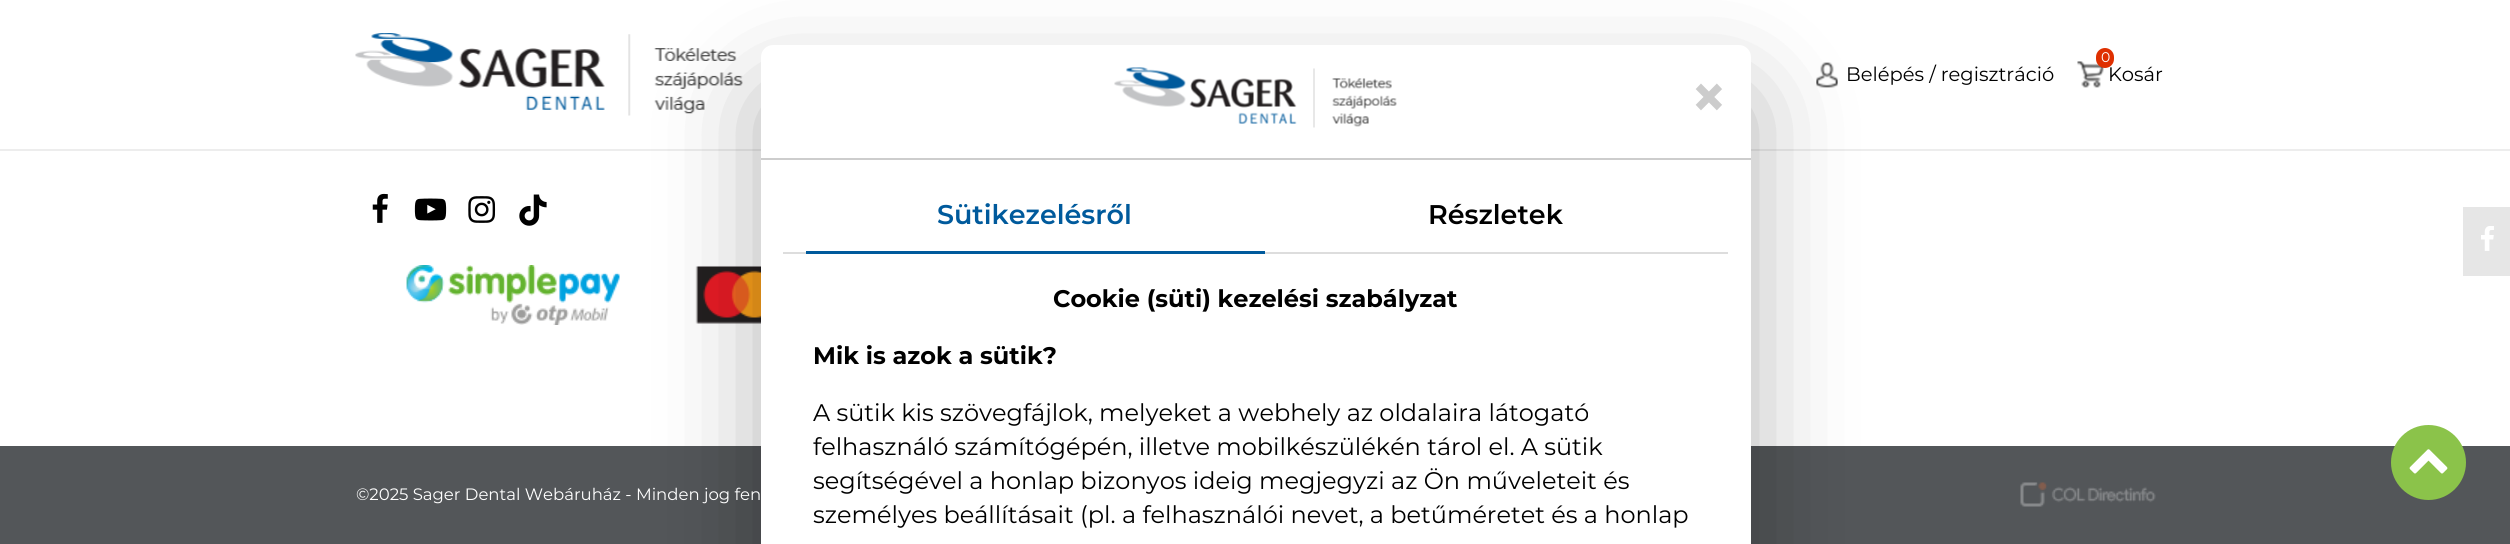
import math
import cairocffi as cairo

surface = cairo.ImageSurface(cairo.FORMAT_RGB24, 2510, 544)
ctx = cairo.Context(surface)
options = cairo.FontOptions()
options.set_hint_metrics(cairo.HINT_METRICS_OFF)
options.set_hint_style(cairo.HINT_STYLE_NONE)
ctx.set_font_options(options)
ctx.set_miter_limit(4)


def rgb(r, g, b):
    ctx.set_source_rgb(r / 255, g / 255, b / 255)


def face(family, size, italic, bold):
    ctx.select_font_face(family, cairo.FONT_SLANT_ITALIC if italic else cairo.FONT_SLANT_NORMAL, cairo.FONT_WEIGHT_BOLD if bold else cairo.FONT_WEIGHT_NORMAL)
    ctx.set_font_size(size)


def label(x, y, s):
    ctx.move_to(x, y)
    ctx.show_text(s)


def rect(x, y, w, h):
    ctx.rectangle(x, y, w, h)
    ctx.fill()


def rrect(x, y, w, h, r):
    ctx.new_sub_path()
    for i, (u, v) in enumerate([(x + w - r, y + h - r), (x + r, y + h - r), (x + r, y + r), (x + w - r, y + r)]):
        ctx.arc(u, v, r, i * math.pi / 2, (i + 1) * math.pi / 2)
    ctx.close_path()


def soft_shadow(x, y, w, h, r, blur, alpha):
    ctx.push_group_with_content(cairo.CONTENT_ALPHA)
    ctx.set_operator(cairo.OPERATOR_SOURCE)
    for i in range(15, -16, -2):
        e = blur * i / 6
        if min(w, h) + 2 * e > 0:
            ctx.set_source_rgba(0, 0, 0, alpha * math.erfc((i - 1) / 8.5) / 2)
            rrect(x - e, y - e, w + 2 * e, h + 2 * e, max(0, min(r + e + blur * .6, min(w, h) / 2 + e)))
            ctx.fill()
    ctx.mask(ctx.pop_group())


def image(path, x, y, w, h):
    ctx.save()
    ctx.set_source_surface(cairo.ImageSurface.create_from_png(path), x, y)
    ctx.rectangle(x, y, w, h)
    ctx.fill()
    ctx.restore()


rgb(255, 255, 255)
ctx.paint()
rgb(237, 237, 237)
rect(0, 149, 2510, 2)
image('image0.png', 355, 33, 388, 83)
image('image1.png', 1816, 62, 22, 26)
face('Montserrat', 19.5, 0, 0)
rgb(0, 0, 0)
label(1846, 81, 'Belépés / regisztráció')
image('image2.png', 2077, 61, 27, 27)
label(2108, 81, 'Kosár')
rgb(223, 48, 1)
rrect(2096, 48, 18, 20, 9)
ctx.fill()
face('Montserrat', 14, 0, 0)
rgb(255, 255, 255)
label(2101, 62, '0')
image('image3.png', 372, 193, 16, 30)
image('image4.png', 414, 198, 33, 23)
image('image5.png', 468, 196, 28, 27)
image('image6.png', 519, 194, 28, 32)
image('image7.png', 406, 265, 355, 60)
rgb(83, 86, 89)
rect(0, 446, 2510, 98)
rgb(0, 0, 0)
soft_shadow(761, 93, 990, 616, 12, 51, 0.3)
rgb(255, 255, 255)
ctx.new_path()
ctx.move_to(773, 45)
ctx.line_to(1739, 45)
ctx.curve_to(1745.5, 45, 1751, 50.5, 1751, 57)
ctx.line_to(1751, 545)
ctx.line_to(761, 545)
ctx.line_to(761, 57)
ctx.curve_to(761, 50.5, 766.5, 45, 773, 45)
ctx.close_path()
ctx.fill()
rgb(205, 205, 205)
rect(761, 158, 990, 2)
image('image8.png', 1114, 67, 283, 61)
face('Montserrat', 63, 0, 1)
rgb(204, 204, 204)
label(1690, 119, '×')
rgb(221, 221, 221)
rect(783, 252, 945, 2)
rgb(255, 255, 255)
ctx.new_path()
ctx.move_to(812, 182)
ctx.line_to(1259, 182)
ctx.curve_to(1262.5, 182, 1265, 184.5, 1265, 188)
ctx.line_to(1265, 254)
ctx.line_to(806, 254)
ctx.line_to(806, 188)
ctx.curve_to(806, 184.5, 808.5, 182, 812, 182)
ctx.close_path()
ctx.fill()
rgb(0, 90, 156)
rect(806, 251, 459, 3)
face('Montserrat SemiBold', 27, 0, 0)
label(937, 224, 'Sütikezelésről')
rgb(0, 0, 0)
label(1428, 224, 'Részletek')
face('Montserrat', 24, 0, 1)
label(1053, 307, 'Cookie (süti) kezelési szabályzat')
label(813, 364, 'Mik is azok a sütik?')
face('Montserrat', 24, 0, 0)
label(813, 421, 'A sütik kis szövegfájlok, melyeket a webhely az oldalaira látogató')
label(813, 455, 'felhasználó számítógépén, illetve mobilkészülékén tárol el. A sütik')
label(813, 489, 'segítségével a honlap bizonyos ideig megjegyzi az Ön műveleteit és')
label(813, 523, 'személyes beállításait (pl. a felhasználói nevet, a betűméretet és a honlap')
rgb(230, 230, 230)
rect(2463, 207, 47, 69)
image('image9.png', 2481, 226, 13, 25)
face('Montserrat', 16.5, 0, 0)
rgb(255, 255, 255)
label(356, 500, '©2025 Sager Dental Webáruház - Minden jog fen')
image('image10.png', 2020, 482, 136, 25)
rgb(139, 195, 74)
ctx.arc(2428.5, 462.5, 37.5, 0, 2 * math.pi)
ctx.fill()
image('image11.png', 2409, 449, 39, 25)
surface.write_to_png('render.png')
